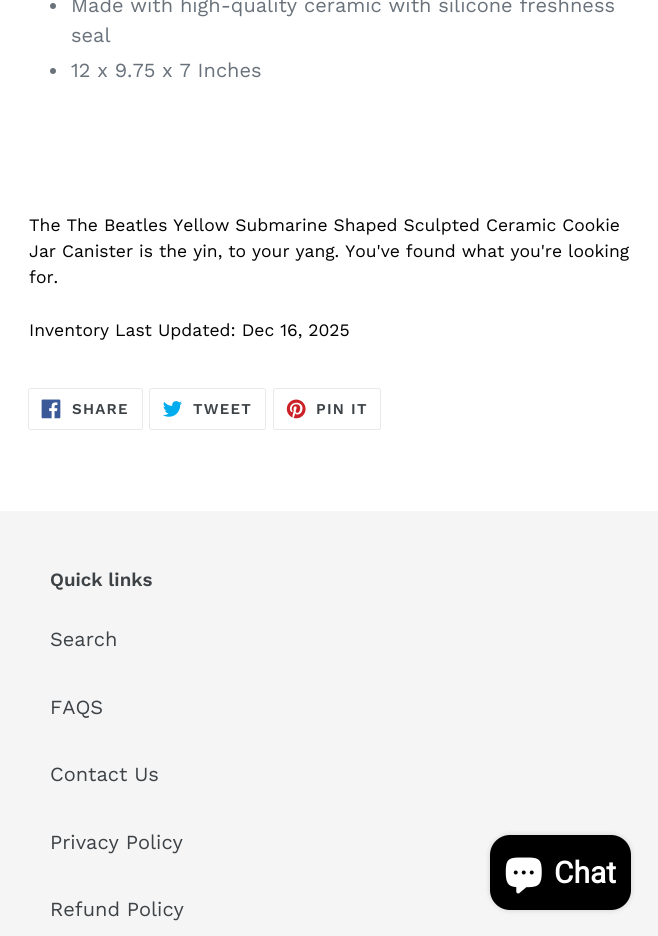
import math
import cairocffi as cairo

surface = cairo.ImageSurface(cairo.FORMAT_RGB24, 658, 936)
ctx = cairo.Context(surface)
options = cairo.FontOptions()
options.set_hint_metrics(cairo.HINT_METRICS_OFF)
options.set_hint_style(cairo.HINT_STYLE_NONE)
ctx.set_font_options(options)
ctx.set_miter_limit(4)


def rgb(r, g, b):
    ctx.set_source_rgb(r / 255, g / 255, b / 255)


def face(family, size, italic, bold):
    ctx.select_font_face(family, cairo.FONT_SLANT_ITALIC if italic else cairo.FONT_SLANT_NORMAL, cairo.FONT_WEIGHT_BOLD if bold else cairo.FONT_WEIGHT_NORMAL)
    ctx.set_font_size(size)


def label(x, y, s):
    ctx.move_to(x, y)
    ctx.show_text(s)


def tracked(x, y, s, letter, word):
    ctx.move_to(x, y)
    for ch in s:
        ctx.show_text(ch)
        ctx.rel_move_to(letter + word * (ch == ' '), 0)


def rect(x, y, w, h):
    ctx.rectangle(x, y, w, h)
    ctx.fill()


def rrect(x, y, w, h, r):
    ctx.new_sub_path()
    for i, (u, v) in enumerate([(x + w - r, y + h - r), (x + r, y + h - r), (x + r, y + r), (x + w - r, y + r)]):
        ctx.arc(u, v, r, i * math.pi / 2, (i + 1) * math.pi / 2)
    ctx.close_path()


def soft_shadow(x, y, w, h, r, blur, alpha):
    ctx.push_group_with_content(cairo.CONTENT_ALPHA)
    ctx.set_operator(cairo.OPERATOR_SOURCE)
    for i in range(15, -16, -2):
        e = blur * i / 6
        if min(w, h) + 2 * e > 0:
            ctx.set_source_rgba(0, 0, 0, alpha * math.erfc((i - 1) / 8.5) / 2)
            rrect(x - e, y - e, w + 2 * e, h + 2 * e, max(0, min(r + e + blur * .6, min(w, h) / 2 + e)))
            ctx.fill()
    ctx.mask(ctx.pop_group())


def image(path, x, y, w, h):
    ctx.save()
    ctx.set_source_surface(cairo.ImageSurface.create_from_png(path), x, y)
    ctx.rectangle(x, y, w, h)
    ctx.fill()
    ctx.restore()


rgb(255, 255, 255)
ctx.paint()
rgb(105, 114, 123)
ctx.arc(53, 6, 3, 0, 2 * math.pi)
ctx.fill()
face('Work Sans', 20, 0, 0)
label(71, 12, 'Made with high-quality ceramic with silicone freshness')
label(71, 42, 'seal')
ctx.new_path()
ctx.arc(53, 71, 3, 0, 2 * math.pi)
ctx.fill()
label(71, 77, '12 x 9.75 x 7 Inches')
face('Work Sans', 17.5, 0, 0)
rgb(0, 0, 0)
label(29, 231, 'The The Beatles Yellow Submarine Shaped Sculpted Ceramic Cookie')
label(29, 257, 'Jar Canister is the yin, to your yang. You\'ve found what you\'re looking')
label(29, 283, 'for.')
label(29, 336, 'Inventory Last Updated: Dec 16, 2025')
rrect(28.5, 388.5, 114, 41, 2)
rgb(232, 233, 235)
ctx.set_line_width(1)
ctx.stroke()
image('image0.png', 41, 399, 20, 20)
face('Work Sans SemiBold', 15, 0, 0)
rgb(61, 66, 70)
tracked(72, 414, 'SHARE', 1.25, 0)
rrect(149.5, 388.5, 116, 41, 2)
rgb(232, 233, 235)
ctx.stroke()
image('image1.png', 163, 401, 19, 16)
rgb(61, 66, 70)
tracked(193, 414, 'TWEET', 1.25, 0)
rrect(273.5, 388.5, 107, 41, 2)
rgb(232, 233, 235)
ctx.stroke()
image('image2.png', 286, 399, 20, 20)
rgb(61, 66, 70)
tracked(316, 414, 'PIN IT', 1.25, 0)
rgb(245, 245, 245)
rect(0, 511, 658, 425)
face('Work Sans SemiBold', 18.75, 0, 0)
rgb(61, 66, 70)
label(50, 586, 'Quick links')
face('Work Sans', 20, 0, 0)
label(50, 646, 'Search')
label(50, 714, 'FAQS')
label(50, 781, 'Contact Us')
label(50, 849, 'Privacy Policy')
label(50, 916, 'Refund Policy')
rgb(0, 0, 0)
soft_shadow(490, 835, 141, 75, 20, 3, 0.15)
rgb(0, 0, 0)
rrect(490, 835, 141, 75, 20)
ctx.fill()
image('image3.png', 505, 857, 37, 37)
face('Roboto', 30, 0, 1)
rgb(255, 255, 255)
label(554, 883, 'Chat')
surface.write_to_png('render.png')
